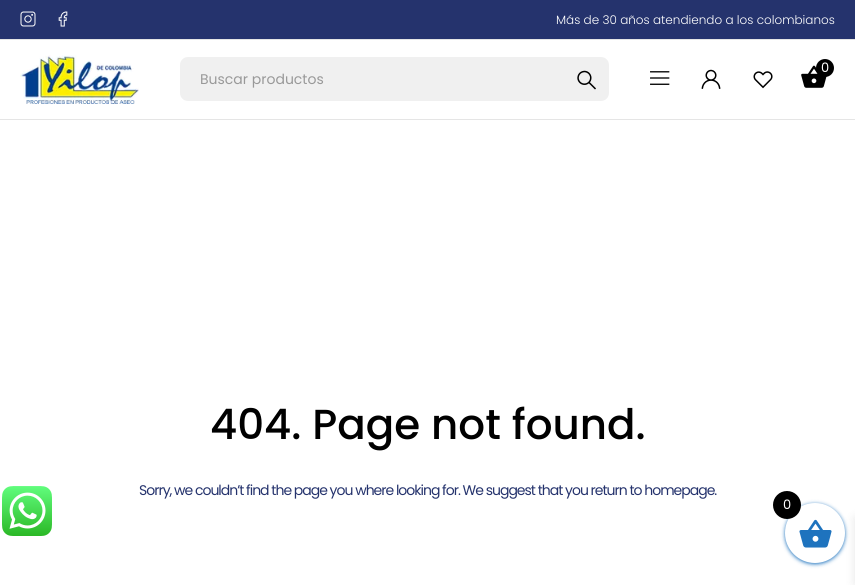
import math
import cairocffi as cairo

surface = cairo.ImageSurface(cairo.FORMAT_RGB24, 855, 585)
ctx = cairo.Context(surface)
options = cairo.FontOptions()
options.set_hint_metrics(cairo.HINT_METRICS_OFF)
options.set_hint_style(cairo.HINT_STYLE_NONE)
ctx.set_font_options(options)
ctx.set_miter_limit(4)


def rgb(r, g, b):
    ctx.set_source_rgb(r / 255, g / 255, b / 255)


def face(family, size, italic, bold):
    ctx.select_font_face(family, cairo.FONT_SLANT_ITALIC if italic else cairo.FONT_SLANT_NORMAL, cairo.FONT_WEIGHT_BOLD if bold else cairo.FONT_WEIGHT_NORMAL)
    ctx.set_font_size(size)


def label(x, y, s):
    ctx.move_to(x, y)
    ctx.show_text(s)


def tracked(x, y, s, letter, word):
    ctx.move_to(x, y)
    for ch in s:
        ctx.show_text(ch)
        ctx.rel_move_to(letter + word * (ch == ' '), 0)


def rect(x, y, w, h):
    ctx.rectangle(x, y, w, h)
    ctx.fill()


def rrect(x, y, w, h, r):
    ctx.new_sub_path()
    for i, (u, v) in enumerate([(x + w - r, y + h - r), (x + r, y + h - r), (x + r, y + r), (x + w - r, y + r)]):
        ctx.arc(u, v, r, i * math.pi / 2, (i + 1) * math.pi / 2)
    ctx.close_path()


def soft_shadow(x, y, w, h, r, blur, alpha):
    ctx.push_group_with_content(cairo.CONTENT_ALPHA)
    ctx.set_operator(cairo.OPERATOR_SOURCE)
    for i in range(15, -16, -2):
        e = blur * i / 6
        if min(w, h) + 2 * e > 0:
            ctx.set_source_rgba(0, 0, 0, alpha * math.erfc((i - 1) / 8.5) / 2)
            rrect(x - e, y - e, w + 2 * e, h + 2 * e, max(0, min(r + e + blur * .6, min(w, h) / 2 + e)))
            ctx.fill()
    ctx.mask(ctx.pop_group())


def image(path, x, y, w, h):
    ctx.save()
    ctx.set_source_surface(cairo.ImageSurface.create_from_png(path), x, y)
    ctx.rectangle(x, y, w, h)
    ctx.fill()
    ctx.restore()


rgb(255, 255, 255)
ctx.paint()
rgb(37, 51, 109)
rect(0, 0, 855, 39)
rgb(229, 229, 229)
rect(0, 39, 855, 1)
image('image0.png', 20, 11, 16, 16)
image('image1.png', 58, 11, 10, 16)
face('Poppins Light', 12, 0, 0)
rgb(255, 255, 255)
label(556, 24, 'Más de 30 años atendiendo a los colombianos')
image('image2.png', 20, 55, 119, 49)
image('image3.png', 801, 65, 26, 23)
rgb(0, 0, 0)
ctx.arc(825, 68, 9, 0, 2 * math.pi)
ctx.fill()
face('Poppins', 13, 0, 0)
rgb(255, 255, 255)
tracked(821, 72, '0', -1, 0)
rgb(240, 240, 240)
rrect(180, 57, 429, 44, 8)
ctx.fill()
face('Poppins', 14, 0, 0)
rgb(153, 153, 153)
label(200, 84, 'Buscar productos')
image('image4.png', 577, 70, 19, 20)
image('image5.png', 650, 71, 20, 14)
image('image6.png', 701, 69, 20, 20)
image('image7.png', 753, 71, 20, 18)
rgb(229, 229, 229)
rect(0, 119, 855, 1)
face('Poppins Medium', 42, 0, 0)
rgb(0, 0, 0)
label(210, 439, '404. Page not found.')
face('Poppins', 14, 0, 0)
rgb(37, 51, 109)
tracked(139, 495, 'Sorry, we couldn’t find the page you where looking for. We suggest that you return to homepage.', -1, 0)
image('image8.png', 2, 486, 50, 50)
rgb(30, 115, 190)
soft_shadow(785, 504, 60, 60, 30, 2, 1)
rgb(0, 0, 0)
soft_shadow(855, 518, 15, 66, 0, 5, 0.1)
rgb(255, 255, 255)
ctx.arc(815, 533, 30, 0, 2 * math.pi)
ctx.fill()
rgb(0, 0, 0)
ctx.arc(787, 505, 14, 0, 2 * math.pi)
ctx.fill()
face('Poppins', 13, 0, 0)
rgb(255, 255, 255)
tracked(783, 509, '0', -1, 0)
image('image9.png', 799, 519, 33, 29)
surface.write_to_png('render.png')
